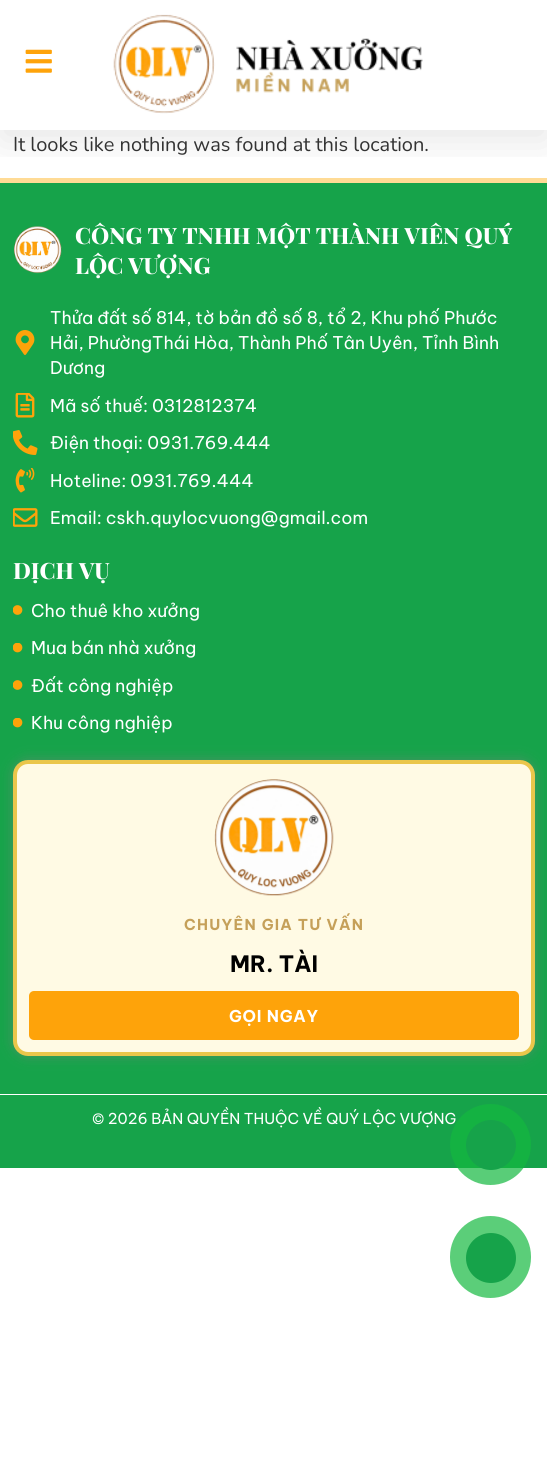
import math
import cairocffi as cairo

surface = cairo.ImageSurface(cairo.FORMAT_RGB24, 547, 1459)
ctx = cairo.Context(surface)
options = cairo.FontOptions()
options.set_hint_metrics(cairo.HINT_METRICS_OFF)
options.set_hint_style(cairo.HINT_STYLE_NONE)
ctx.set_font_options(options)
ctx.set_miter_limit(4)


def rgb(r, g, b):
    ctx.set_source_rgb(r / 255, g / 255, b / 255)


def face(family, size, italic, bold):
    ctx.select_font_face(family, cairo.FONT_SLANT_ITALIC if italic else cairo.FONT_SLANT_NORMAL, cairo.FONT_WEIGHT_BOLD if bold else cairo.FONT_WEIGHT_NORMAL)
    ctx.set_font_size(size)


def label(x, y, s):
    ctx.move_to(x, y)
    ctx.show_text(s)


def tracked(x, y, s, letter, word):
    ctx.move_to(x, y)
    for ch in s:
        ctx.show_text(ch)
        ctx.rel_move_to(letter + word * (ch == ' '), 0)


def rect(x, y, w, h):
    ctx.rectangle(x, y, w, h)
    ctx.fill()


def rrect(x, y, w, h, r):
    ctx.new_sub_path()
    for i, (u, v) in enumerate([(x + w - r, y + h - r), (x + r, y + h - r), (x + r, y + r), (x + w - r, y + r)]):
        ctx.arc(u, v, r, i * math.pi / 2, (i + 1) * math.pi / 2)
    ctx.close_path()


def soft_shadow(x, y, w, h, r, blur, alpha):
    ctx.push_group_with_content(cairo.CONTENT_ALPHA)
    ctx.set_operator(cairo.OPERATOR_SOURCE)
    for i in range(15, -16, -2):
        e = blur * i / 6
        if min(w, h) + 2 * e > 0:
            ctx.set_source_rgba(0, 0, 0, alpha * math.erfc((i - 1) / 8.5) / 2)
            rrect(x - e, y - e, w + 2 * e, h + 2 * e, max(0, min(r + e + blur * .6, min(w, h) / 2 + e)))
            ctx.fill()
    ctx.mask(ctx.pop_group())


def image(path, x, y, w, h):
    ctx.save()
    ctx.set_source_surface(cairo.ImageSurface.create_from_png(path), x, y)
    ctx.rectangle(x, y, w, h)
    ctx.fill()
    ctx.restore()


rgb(255, 255, 255)
ctx.paint()
rgb(22, 163, 74)
rect(0, 183, 547, 985)
rgb(255, 219, 149)
rect(0, 178, 547, 5)
ctx.save()
ctx.rectangle(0, 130, 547, 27)
ctx.clip()
rgb(0, 0, 0)
soft_shadow(0, 10, 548, 130, 0, 20, 0.1)
ctx.restore()
image('image0.png', 25, 49, 27, 24)
image('image1.png', 113, 14, 310, 100)
face('Nunito', 20, 0, 0)
rgb(51, 51, 51)
label(13, 151, 'It looks like nothing was found at this location.')
image('image2.png', 13, 225, 49, 49)
face('Playfair Display ExtraBold', 22.5, 0, 0)
rgb(255, 255, 255)
label(75, 244, 'CÔNG TY TNHH MỘT THÀNH VIÊN QUÝ')
label(75, 274, 'LỘC VƯỢNG')
image('image3.png', 15, 330, 20, 25)
face('Be Vietnam Pro', 17.5, 0, 0)
label(50, 324, 'Thửa đất số 814, tờ bản đồ số 8, tổ 2, Khu phố Phước')
label(50, 349, 'Hải, PhườngThái Hòa, Thành Phố Tân Uyên, Tỉnh Bình')
label(50, 374, 'Dương')
image('image4.png', 15, 393, 20, 25)
label(50, 412, 'Mã số thuế: 0312812374')
image('image5.png', 13, 430, 25, 25)
label(50, 449, 'Điện thoại: 0931.769.444')
image('image6.png', 15, 468, 20, 25)
label(50, 487, 'Hoteline: 0931.769.444')
image('image7.png', 13, 508, 25, 19)
label(50, 524, 'Email: cskh.quylocvuong@gmail.com')
face('Playfair Display ExtraBold', 22.5, 0, 0)
label(13, 579, 'DỊCH VỤ')
image('image8.png', 13, 605, 10, 10)
face('Be Vietnam Pro', 17.5, 0, 0)
label(31, 617, 'Cho thuê kho xưởng')
image('image9.png', 13, 643, 10, 10)
label(31, 654, 'Mua bán nhà xưởng')
image('image8.png', 13, 680, 10, 10)
label(31, 692, 'Đất công nghiệp')
image('image9.png', 13, 718, 10, 10)
label(31, 729, 'Khu công nghiệp')
rgb(129, 129, 129)
soft_shadow(13, 760, 522, 296, 15, 6, 0.5)
rgb(255, 250, 228)
rrect(15, 762, 518, 292, 13)
ctx.fill_preserve()
rgb(234, 198, 75)
ctx.set_line_width(4)
ctx.stroke()
image('image10.png', 214, 779, 120, 117)
face('Be Vietnam Pro', 15, 0, 1)
rgb(197, 160, 89)
tracked(184, 930, 'CHUYÊN GIA TƯ VẤN', 1.25, 0)
face('Be Vietnam Pro', 22.5, 0, 1)
rgb(0, 0, 0)
label(230, 972, 'MR. TÀI')
rgb(254, 163, 10)
rrect(29, 991, 490, 49, 5)
ctx.fill()
face('Be Vietnam Pro', 16.25, 0, 1)
rgb(255, 255, 255)
tracked(229, 1022, 'GỌI NGAY', 0.75, 0)
rect(0, 1094, 547, 1)
face('Be Vietnam Pro', 15, 0, 0)
label(92, 1124, '© 2026 BẢN QUYỀN THUỘC VỀ QUÝ LỘC VƯỢNG')
ctx.set_source_rgba(0.078, 0.725, 0.247, 0.7)
ctx.new_path()
ctx.arc(490.5, 1144.5, 40.5, 0, 2 * math.pi)
ctx.fill()
rgb(22, 163, 74)
ctx.arc(491, 1145, 25, 0, 2 * math.pi)
ctx.fill()
rgb(91, 206, 121)
rrect(450, 1216, 81, 82, 40.5)
ctx.fill()
rgb(22, 163, 74)
ctx.arc(491, 1258, 25, 0, 2 * math.pi)
ctx.fill()
surface.write_to_png('render.png')
